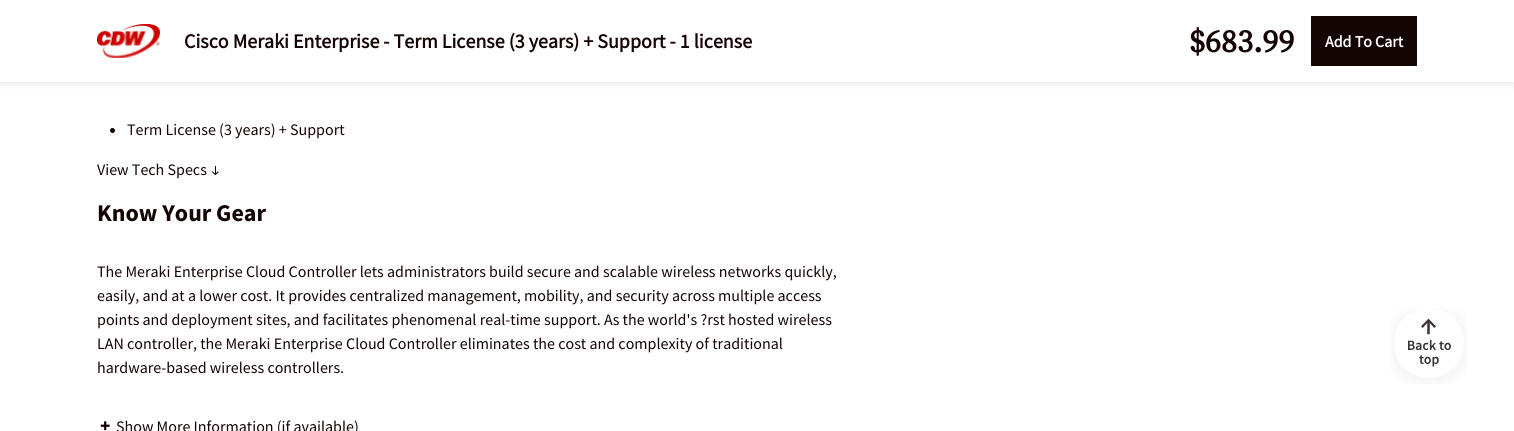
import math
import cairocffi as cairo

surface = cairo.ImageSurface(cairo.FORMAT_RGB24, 1514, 431)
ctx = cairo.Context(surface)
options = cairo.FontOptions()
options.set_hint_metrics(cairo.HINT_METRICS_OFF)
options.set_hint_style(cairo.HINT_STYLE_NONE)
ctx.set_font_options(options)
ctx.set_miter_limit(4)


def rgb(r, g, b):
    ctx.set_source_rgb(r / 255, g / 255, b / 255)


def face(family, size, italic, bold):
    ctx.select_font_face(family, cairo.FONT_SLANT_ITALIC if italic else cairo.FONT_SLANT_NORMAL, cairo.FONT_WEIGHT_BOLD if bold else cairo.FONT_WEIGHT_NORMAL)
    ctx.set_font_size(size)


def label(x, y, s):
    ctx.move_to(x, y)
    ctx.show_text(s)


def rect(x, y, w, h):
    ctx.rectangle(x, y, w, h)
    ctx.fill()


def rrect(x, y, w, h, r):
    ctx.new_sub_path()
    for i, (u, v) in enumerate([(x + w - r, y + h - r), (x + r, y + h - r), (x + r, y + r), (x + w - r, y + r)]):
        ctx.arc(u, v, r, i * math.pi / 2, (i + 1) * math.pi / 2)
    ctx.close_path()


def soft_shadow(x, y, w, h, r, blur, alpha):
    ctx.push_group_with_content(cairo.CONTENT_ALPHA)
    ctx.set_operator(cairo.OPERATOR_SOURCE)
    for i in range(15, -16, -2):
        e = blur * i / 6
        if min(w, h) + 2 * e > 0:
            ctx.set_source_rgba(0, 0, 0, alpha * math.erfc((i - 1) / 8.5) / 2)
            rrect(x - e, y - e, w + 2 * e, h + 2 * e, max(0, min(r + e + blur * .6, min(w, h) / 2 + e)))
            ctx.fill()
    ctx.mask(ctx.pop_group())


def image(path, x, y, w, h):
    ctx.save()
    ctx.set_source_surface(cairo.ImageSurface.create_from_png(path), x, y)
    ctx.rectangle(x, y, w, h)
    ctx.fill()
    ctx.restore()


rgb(255, 255, 255)
ctx.paint()
rgb(0, 0, 0)
soft_shadow(0, 2, 1514, 82, 0, 4, 0.1)
rgb(255, 255, 255)
rect(0, 0, 1514, 82)
image('image0.png', 97, 24, 63, 34)
face('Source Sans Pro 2', 20, 0, 1)
rgb(21, 4, 4)
label(184, 48, 'Cisco Meraki Enterprise - Term License (3 years) + Support - 1 license')
face('Source Serif Pro', 32, 0, 1)
label(1189, 52, '$683.99')
rect(1311, 16, 106, 50)
face('Source Sans Pro 2', 16, 0, 1)
rgb(255, 255, 255)
label(1325, 47, 'Add To Cart')
rgb(21, 4, 4)
ctx.new_path()
ctx.arc(112.5, 130.5, 2.5, 0, 2 * math.pi)
ctx.fill()
face('Source Sans Pro', 16, 0, 0)
label(127, 135, 'Term License (3 years) + Support')
label(97, 175, 'View Tech Specs')
image('image1.png', 212, 166, 7, 9)
face('Source Sans Pro', 24, 0, 1)
label(97, 221, 'Know Your Gear')
face('Source Sans Pro', 16, 0, 0)
label(97, 277, 'The Meraki Enterprise Cloud Controller lets administrators build secure and scalable wireless networks quickly,')
label(97, 301, 'easily, and at a lower cost. It provides centralized management, mobility, and security across multiple access')
label(97, 325, 'points and deployment sites, and facilitates phenomenal real-time support. As the world\'s ?rst hosted wireless')
label(97, 349, 'LAN controller, the Meraki Enterprise Cloud Controller eliminates the cost and complexity of traditional')
label(97, 373, 'hardware-based wireless controllers.')
image('image2.png', 100, 421, 10, 10)
label(116, 432, 'Show More Information (if available)')
image('image3.png', 1391, 308, 76, 76)
surface.write_to_png('render.png')
